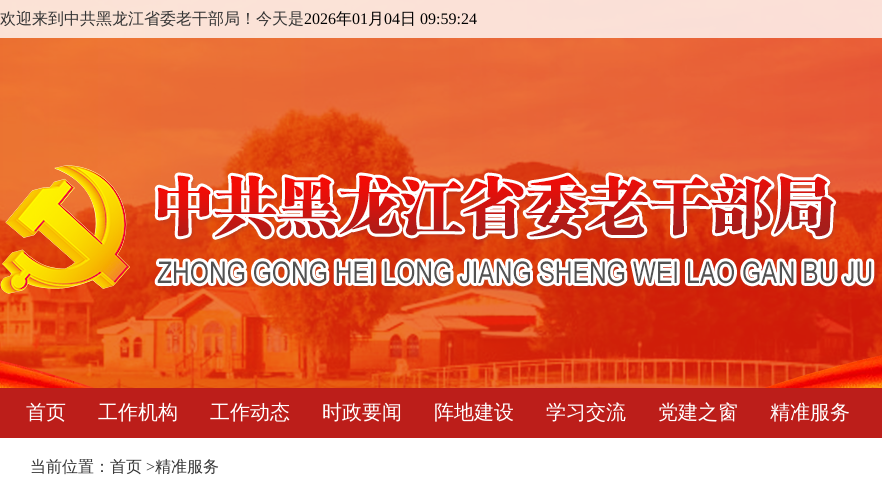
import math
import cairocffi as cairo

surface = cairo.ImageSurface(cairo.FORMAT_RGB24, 882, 495)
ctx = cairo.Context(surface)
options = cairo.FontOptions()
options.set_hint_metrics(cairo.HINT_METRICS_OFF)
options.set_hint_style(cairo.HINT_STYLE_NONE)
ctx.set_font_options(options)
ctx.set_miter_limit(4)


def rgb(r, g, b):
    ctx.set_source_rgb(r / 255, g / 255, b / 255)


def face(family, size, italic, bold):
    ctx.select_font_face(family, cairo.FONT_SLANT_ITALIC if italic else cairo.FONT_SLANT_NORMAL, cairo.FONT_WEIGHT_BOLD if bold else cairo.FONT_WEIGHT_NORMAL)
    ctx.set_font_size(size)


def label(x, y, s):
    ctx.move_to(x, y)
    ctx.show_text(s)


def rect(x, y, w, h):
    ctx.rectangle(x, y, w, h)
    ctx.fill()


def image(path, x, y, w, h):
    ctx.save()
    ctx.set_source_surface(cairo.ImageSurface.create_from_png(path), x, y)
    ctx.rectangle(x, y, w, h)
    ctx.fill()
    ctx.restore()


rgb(255, 255, 255)
ctx.paint()
image('image0.png', 0, 0, 882, 388)
ctx.set_source_rgba(1, 1, 1, 0.8)
rect(0, 0, 882, 38)
face('WenQuanYi Zen Hei Medium', 16, 0, 0)
rgb(51, 51, 51)
label(0, 24, '欢迎来到中共黑龙江省委老干部局！今天是')
face('Liberation Serif', 16, 0, 0)
rgb(0, 0, 0)
label(304, 24, '2026')
face('WenQuanYi Zen Hei Medium', 16, 0, 0)
label(336, 24, '年')
face('Liberation Serif', 16, 0, 0)
label(352, 24, '01')
face('WenQuanYi Zen Hei Medium', 16, 0, 0)
label(368, 24, '月')
face('Liberation Serif', 16, 0, 0)
label(384, 24, '04')
face('WenQuanYi Zen Hei Medium', 16, 0, 0)
label(400, 24, '日')
face('Liberation Serif', 16, 0, 0)
label(420, 24, '09:59:24')
image('image1.png', 0, 165, 877, 129)
rgb(188, 30, 26)
rect(0, 388, 882, 50)
face('WenQuanYi Zen Hei Medium', 20, 0, 0)
rgb(255, 255, 255)
label(26, 419, '首页')
label(98, 419, '工作机构')
label(210, 419, '工作动态')
label(322, 419, '时政要闻')
label(434, 419, '阵地建设')
label(546, 419, '学习交流')
label(658, 419, '党建之窗')
label(770, 419, '精准服务')
face('WenQuanYi Zen Hei Medium', 16, 0, 0)
rgb(51, 51, 51)
label(30, 472, '当前位置：首页')
face('Liberation Serif', 16, 0, 0)
label(146, 472, '>')
face('WenQuanYi Zen Hei Medium', 16, 0, 0)
label(155, 472, '精准服务')
surface.write_to_png('render.png')
